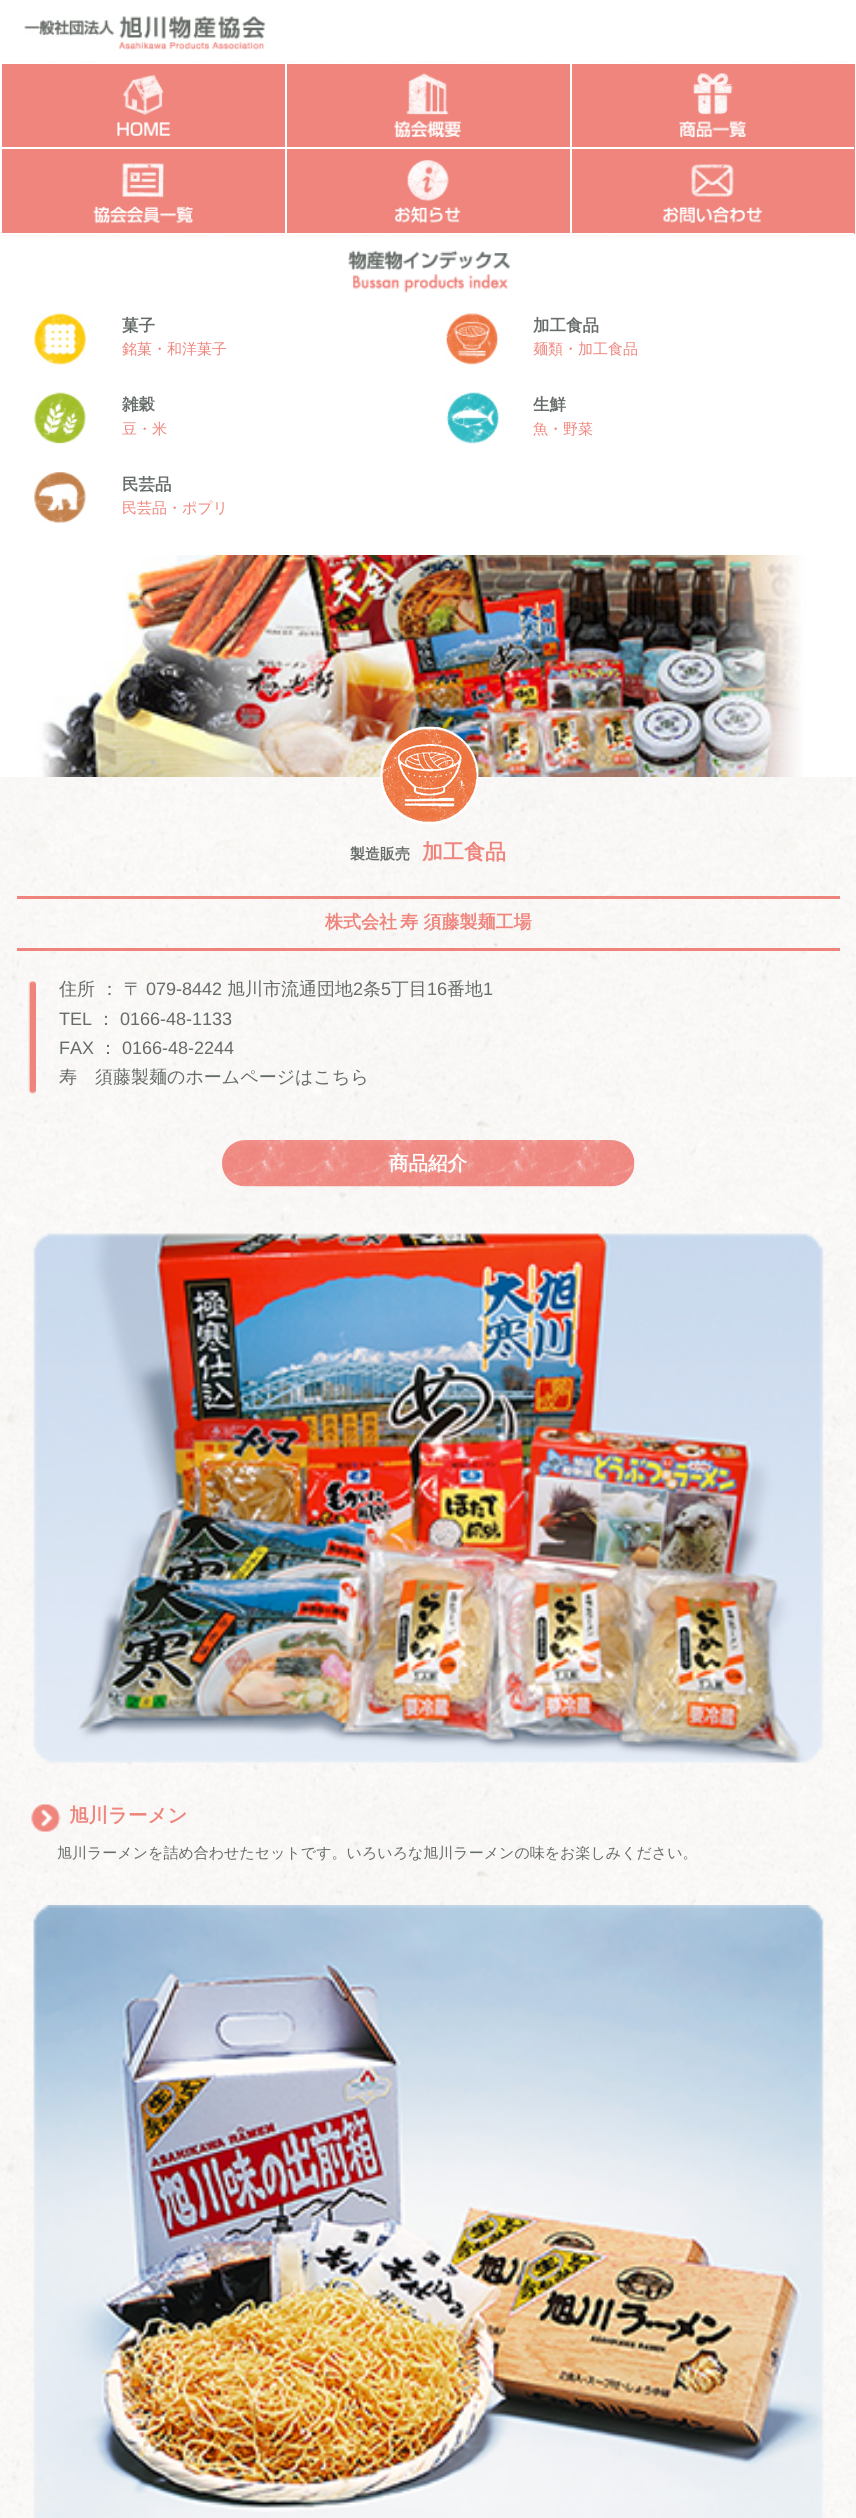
import math
import cairocffi as cairo

surface = cairo.ImageSurface(cairo.FORMAT_RGB24, 856, 2518)
ctx = cairo.Context(surface)
options = cairo.FontOptions()
options.set_hint_metrics(cairo.HINT_METRICS_OFF)
options.set_hint_style(cairo.HINT_STYLE_NONE)
ctx.set_font_options(options)
ctx.set_miter_limit(4)


def rgb(r, g, b):
    ctx.set_source_rgb(r / 255, g / 255, b / 255)


def face(family, size, italic, bold):
    ctx.select_font_face(family, cairo.FONT_SLANT_ITALIC if italic else cairo.FONT_SLANT_NORMAL, cairo.FONT_WEIGHT_BOLD if bold else cairo.FONT_WEIGHT_NORMAL)
    ctx.set_font_size(size)


def label(x, y, s):
    ctx.move_to(x, y)
    ctx.show_text(s)


def rect(x, y, w, h):
    ctx.rectangle(x, y, w, h)
    ctx.fill()


def image(path, x, y, w, h):
    ctx.save()
    ctx.set_source_surface(cairo.ImageSurface.create_from_png(path), x, y)
    ctx.rectangle(x, y, w, h)
    ctx.fill()
    ctx.restore()


rgb(255, 255, 255)
ctx.paint()
image('image0.png', 24, 16, 242, 34)
image('image1.png', 0, 61, 856, 175)
rgb(239, 133, 125)
rect(2, 64, 853, 170)
rgb(255, 255, 255)
rect(0, 62, 856, 2)
rect(855, 62, 1, 172)
rect(0, 147, 854, 2)
rect(0, 63, 2, 86)
image('image2.png', 117, 74, 54, 62)
rect(285, 63, 2, 86)
image('image3.png', 394, 73, 67, 65)
rect(570, 63, 2, 86)
image('image4.png', 679, 73, 67, 65)
rect(0, 233, 854, 2)
rect(0, 149, 2, 85)
image('image5.png', 93, 163, 100, 61)
rect(285, 149, 2, 85)
image('image6.png', 395, 160, 66, 64)
rect(570, 149, 2, 85)
image('image7.png', 663, 164, 100, 60)
image('image8.png', 348, 250, 162, 43)
image('image9.png', 34, 313, 52, 52)
face('WenQuanYi Zen Hei', 16.5, 0, 1)
rgb(102, 108, 103)
label(122, 331, '菓子')
face('WenQuanYi Zen Hei Medium', 15, 0, 0)
rgb(239, 133, 125)
label(122, 354, '銘菓・和洋菓子')
image('image10.png', 446, 313, 53, 52)
face('WenQuanYi Zen Hei', 16.5, 0, 1)
rgb(102, 108, 103)
label(533, 331, '加工食品')
face('WenQuanYi Zen Hei Medium', 15, 0, 0)
rgb(239, 133, 125)
label(533, 354, '麺類・加工食品')
image('image11.png', 34, 392, 52, 52)
face('WenQuanYi Zen Hei', 16.5, 0, 1)
rgb(102, 108, 103)
label(122, 410, '雑穀')
face('WenQuanYi Zen Hei Medium', 15, 0, 0)
rgb(239, 133, 125)
label(122, 434, '豆・米')
image('image12.png', 446, 392, 53, 52)
face('WenQuanYi Zen Hei', 16.5, 0, 1)
rgb(102, 108, 103)
label(533, 410, '生鮮')
face('WenQuanYi Zen Hei Medium', 15, 0, 0)
rgb(239, 133, 125)
label(533, 434, '魚・野菜')
image('image13.png', 34, 472, 52, 51)
face('WenQuanYi Zen Hei', 16.5, 0, 1)
rgb(102, 108, 103)
label(122, 490, '民芸品')
face('WenQuanYi Zen Hei Medium', 15, 0, 0)
rgb(239, 133, 125)
label(122, 513, '民芸品・ポプリ')
image('image14.png', 0, 777, 856, 1741)
image('image15.png', 0, 555, 856, 222)
image('image16.png', 380, 726, 99, 99)
face('WenQuanYi Zen Hei', 15, 0, 1)
rgb(102, 108, 103)
label(350, 859, '製造販売')
face('WenQuanYi Zen Hei', 21, 0, 1)
rgb(239, 133, 125)
label(422, 859, '加工食品')
rgb(239, 132, 124)
rect(17, 896, 823, 3)
rect(17, 948, 823, 3)
face('WenQuanYi Zen Hei', 18, 0, 1)
rgb(239, 133, 125)
label(325, 928, '株式会社')
label(400, 928, '寿 須藤製麺工場')
image('image17.png', 28, 984, 8, 110)
image('image18.png', 28, 981, 8, 4)
face('WenQuanYi Zen Hei Medium', 18, 0, 0)
rgb(102, 108, 103)
label(59, 995, '住所 ： 〒')
face('Liberation Sans', 18, 0, 0)
label(146, 995, '079-8442')
face('WenQuanYi Zen Hei Medium', 18, 0, 0)
label(227, 995, '旭川市流通団地')
face('Liberation Sans', 18, 0, 0)
label(353, 995, '2')
face('WenQuanYi Zen Hei Medium', 18, 0, 0)
label(363, 995, '条')
face('Liberation Sans', 18, 0, 0)
label(381, 995, '5')
face('WenQuanYi Zen Hei Medium', 18, 0, 0)
label(391, 995, '丁目')
face('Liberation Sans', 18, 0, 0)
label(427, 995, '16')
face('WenQuanYi Zen Hei Medium', 18, 0, 0)
label(447, 995, '番地')
face('Liberation Sans', 18, 0, 0)
label(483, 995, '1')
label(59, 1025, 'TEL')
face('WenQuanYi Zen Hei Medium', 18, 0, 0)
label(97, 1025, '：')
face('Liberation Sans', 18, 0, 0)
label(120, 1025, '0166-48-1133')
label(59, 1054, 'FAX')
face('WenQuanYi Zen Hei Medium', 18, 0, 0)
label(99, 1054, '：')
face('Liberation Sans', 18, 0, 0)
label(122, 1054, '0166-48-2244')
face('WenQuanYi Zen Hei Medium', 18, 0, 0)
label(59, 1083, '寿　須藤製麺のホームページはこちら')
image('image19.png', 222, 1140, 413, 47)
face('WenQuanYi Zen Hei', 19.5, 0, 1)
rgb(255, 255, 255)
label(389, 1170, '商品紹介')
image('image20.png', 33, 1233, 791, 530)
image('image21.png', 31, 1804, 30, 28)
rgb(239, 133, 125)
label(69, 1822, '旭川ラーメン')
face('WenQuanYi Zen Hei Medium', 15, 0, 0)
rgb(102, 108, 103)
label(57, 1858, '旭川ラーメンを詰め合わせたセットです。いろいろな旭川ラーメンの味をお楽しみください。')
image('image22.png', 33, 1905, 791, 613)
surface.write_to_png('render.png')
